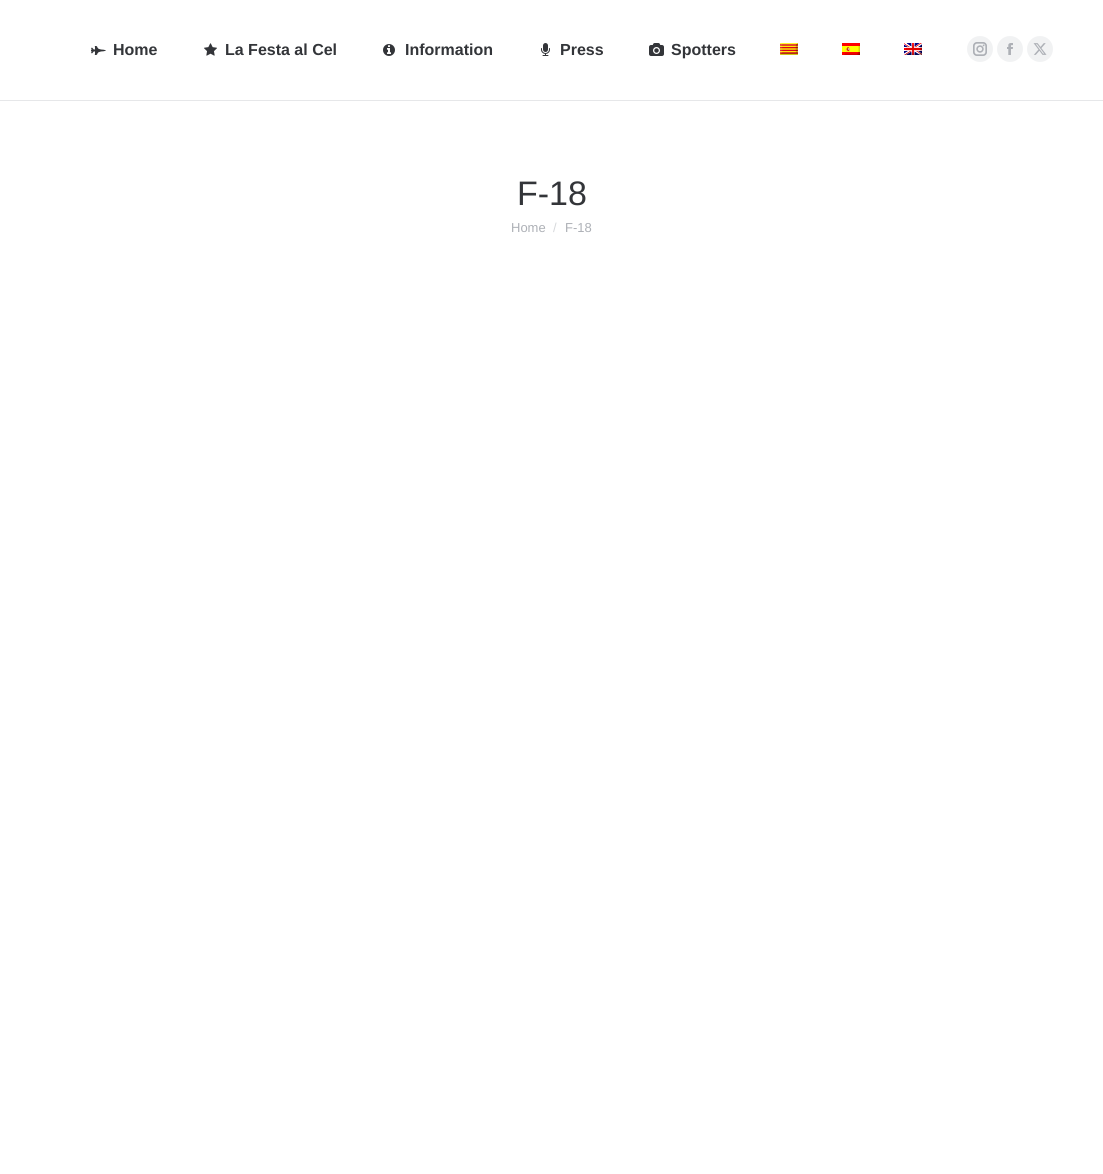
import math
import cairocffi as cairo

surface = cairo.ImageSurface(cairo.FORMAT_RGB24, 1103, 1174)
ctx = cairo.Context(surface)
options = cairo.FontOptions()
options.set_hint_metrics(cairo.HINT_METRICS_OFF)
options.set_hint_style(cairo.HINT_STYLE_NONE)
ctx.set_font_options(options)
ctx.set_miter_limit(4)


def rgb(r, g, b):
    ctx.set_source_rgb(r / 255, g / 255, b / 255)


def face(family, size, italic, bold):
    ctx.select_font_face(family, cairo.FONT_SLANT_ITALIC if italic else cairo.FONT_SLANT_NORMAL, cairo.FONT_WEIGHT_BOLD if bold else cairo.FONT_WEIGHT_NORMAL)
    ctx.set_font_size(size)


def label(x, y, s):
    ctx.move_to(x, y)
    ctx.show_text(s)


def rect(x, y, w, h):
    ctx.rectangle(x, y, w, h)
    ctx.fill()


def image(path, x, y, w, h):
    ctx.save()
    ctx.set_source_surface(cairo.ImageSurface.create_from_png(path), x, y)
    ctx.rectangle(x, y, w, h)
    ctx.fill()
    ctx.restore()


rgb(255, 255, 255)
ctx.paint()
rgb(230, 231, 233)
rect(0, 100, 1103, 1)
image('image0.png', 91, 46, 15, 9)
face('Liberation Sans', 16, 0, 1)
rgb(51, 53, 57)
label(113, 55, 'Home')
image('image1.png', 204, 43, 13, 13)
label(225, 55, 'La Festa al Cel')
image('image2.png', 383, 44, 12, 12)
label(405, 55, 'Information')
image('image3.png', 541, 43, 9, 13)
label(560, 55, 'Press')
image('image4.png', 649, 43, 15, 13)
label(671, 55, 'Spotters')
image('image5.png', 780, 43, 18, 12)
image('image6.png', 842, 43, 18, 12)
image('image7.png', 904, 43, 18, 12)
rgb(241, 242, 243)
ctx.arc(980, 49, 13, 0, 2 * math.pi)
ctx.fill()
image('image8.png', 973, 42, 14, 14)
ctx.arc(1010, 49, 13, 0, 2 * math.pi)
ctx.fill()
image('image9.png', 1007, 43, 6, 12)
ctx.arc(1040, 49, 13, 0, 2 * math.pi)
ctx.fill()
image('image10.png', 1033, 43, 14, 12)
face('Liberation Sans', 34, 0, 0)
rgb(51, 53, 57)
label(517, 205, 'F-18')
face('Liberation Sans', 13, 0, 0)
rgb(173, 176, 182)
label(511, 232, 'Home')
rgb(214, 216, 219)
label(553, 232, '/')
rgb(173, 176, 182)
label(565, 232, 'F-18')
surface.write_to_png('render.png')
